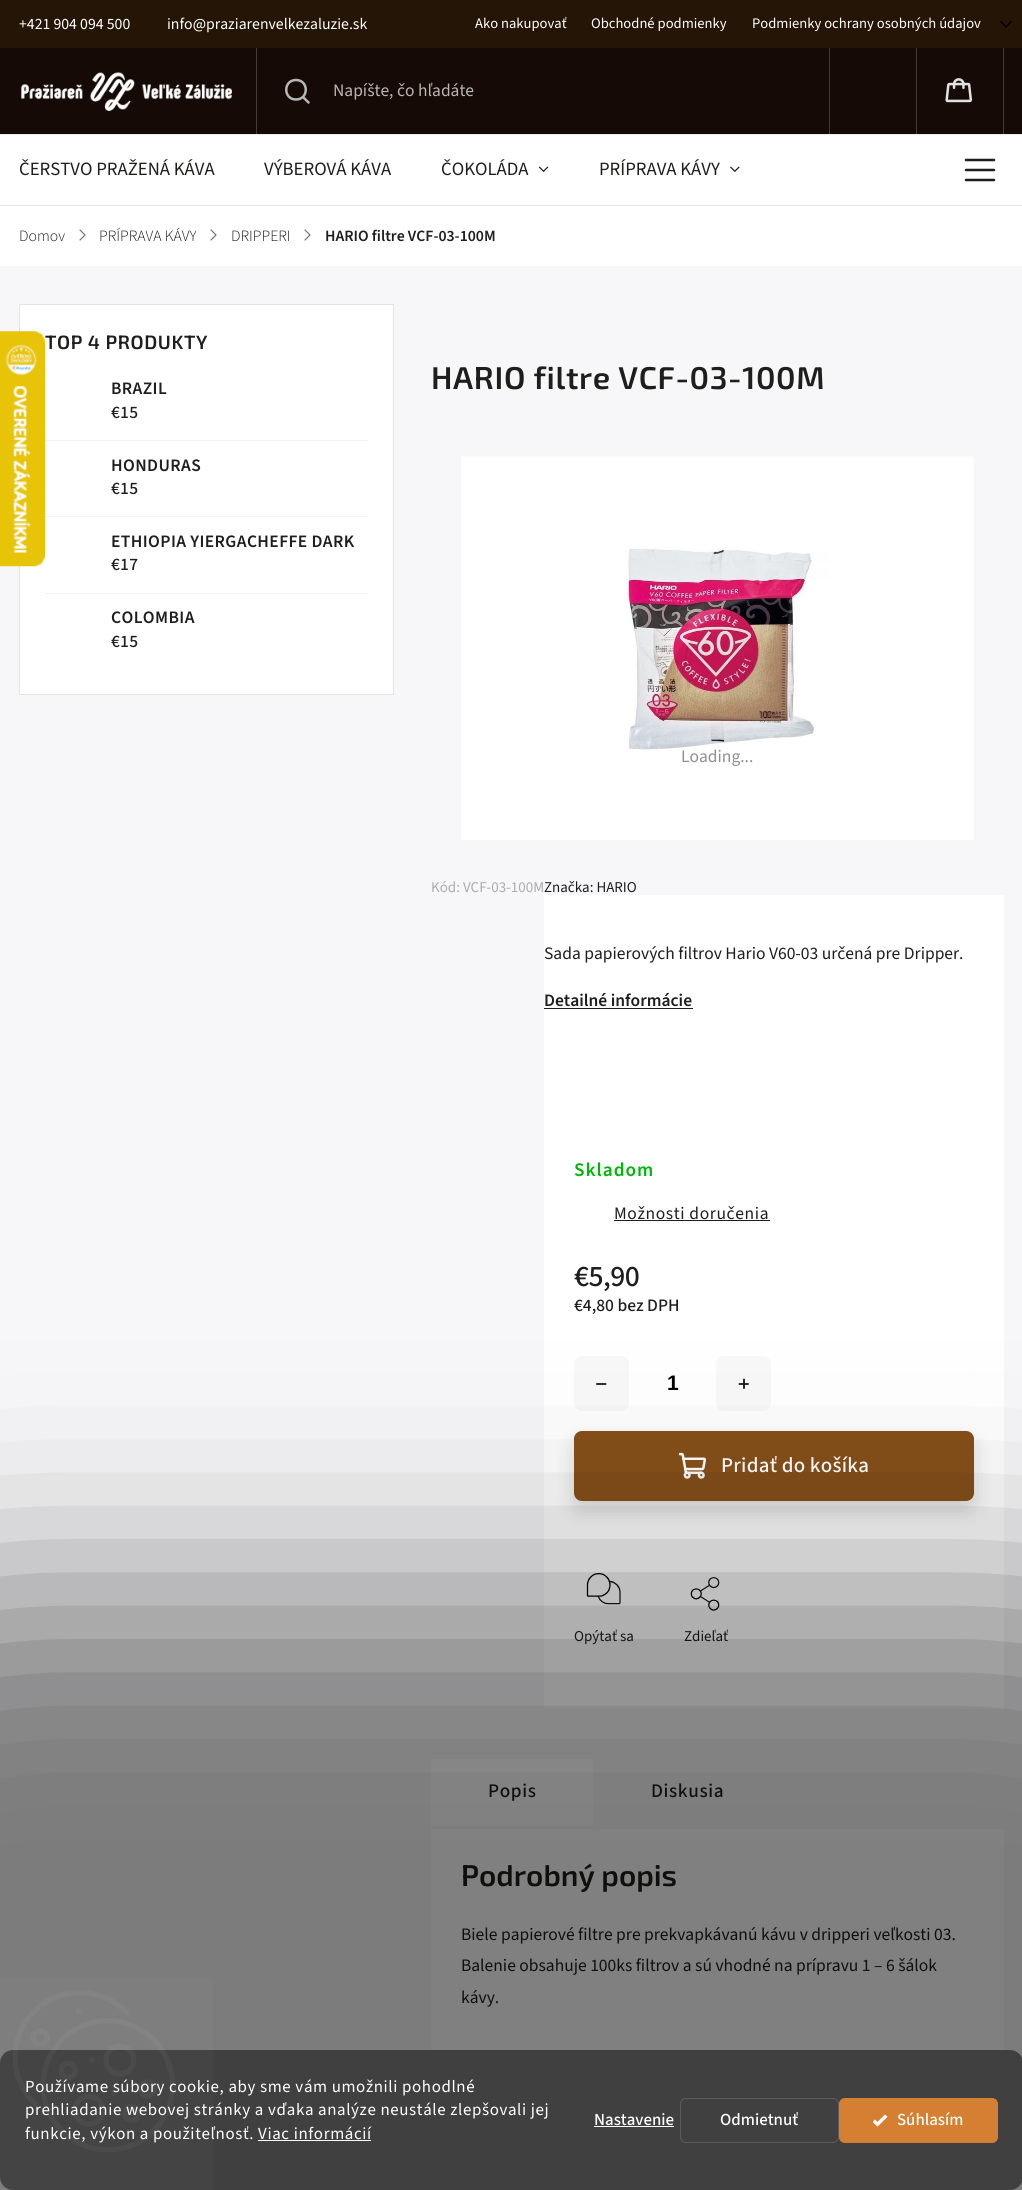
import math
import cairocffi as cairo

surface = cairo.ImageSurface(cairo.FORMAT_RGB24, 1022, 2190)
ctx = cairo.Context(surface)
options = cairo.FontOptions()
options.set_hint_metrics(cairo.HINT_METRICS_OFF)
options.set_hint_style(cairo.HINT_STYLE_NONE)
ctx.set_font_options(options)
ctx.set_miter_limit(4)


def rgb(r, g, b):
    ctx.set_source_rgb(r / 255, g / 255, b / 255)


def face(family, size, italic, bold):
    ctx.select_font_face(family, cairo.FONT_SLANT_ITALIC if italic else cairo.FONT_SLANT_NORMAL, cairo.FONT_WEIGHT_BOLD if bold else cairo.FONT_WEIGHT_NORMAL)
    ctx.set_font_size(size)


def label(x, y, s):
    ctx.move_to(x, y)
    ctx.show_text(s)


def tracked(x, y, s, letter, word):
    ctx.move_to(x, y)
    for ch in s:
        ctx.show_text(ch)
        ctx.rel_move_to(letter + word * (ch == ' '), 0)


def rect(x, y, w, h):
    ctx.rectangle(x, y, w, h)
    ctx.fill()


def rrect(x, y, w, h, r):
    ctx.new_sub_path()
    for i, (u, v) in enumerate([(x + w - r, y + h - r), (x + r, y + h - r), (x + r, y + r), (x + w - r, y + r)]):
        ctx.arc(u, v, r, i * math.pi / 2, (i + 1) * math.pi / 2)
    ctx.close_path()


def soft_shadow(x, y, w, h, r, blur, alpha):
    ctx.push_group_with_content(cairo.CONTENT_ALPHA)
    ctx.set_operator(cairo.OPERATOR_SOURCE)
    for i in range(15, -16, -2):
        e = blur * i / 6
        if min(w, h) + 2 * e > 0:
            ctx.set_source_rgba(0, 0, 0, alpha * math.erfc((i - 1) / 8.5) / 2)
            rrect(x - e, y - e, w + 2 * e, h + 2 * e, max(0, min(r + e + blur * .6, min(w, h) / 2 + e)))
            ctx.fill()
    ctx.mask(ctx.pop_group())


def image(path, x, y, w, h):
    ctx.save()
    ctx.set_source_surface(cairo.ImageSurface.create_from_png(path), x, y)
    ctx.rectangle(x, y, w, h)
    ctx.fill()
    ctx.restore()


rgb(247, 247, 249)
ctx.paint()
rgb(37, 21, 6)
rect(0, 0, 1022, 48)
face('Source Sans 3', 15.75, 0, 0)
rgb(255, 255, 255)
label(19, 29, '+421 904 094 500')
label(167, 29, 'info@praziarenvelkezaluzie.sk')
face('Source Sans 3', 14.6, 0, 0)
label(475, 28, 'Ako nakupovať')
label(591, 28, 'Obchodné podmienky')
label(752, 28, 'Podmienky ochrany osobných údajov')
image('image0.png', 1000, 21, 12, 7)
rgb(228, 228, 228)
rect(0, 205, 1022, 1)
rgb(21, 10, 5)
rect(0, 48, 1022, 86)
image('image1.png', 21, 72, 211, 39)
rgb(68, 59, 55)
rect(256, 48, 1, 86)
ctx.new_path()
ctx.move_to(296, 99.5)
ctx.curve_to(309, 99.5, 309, 80, 296, 80)
ctx.curve_to(283, 80, 283, 99.5, 296, 99.5)
ctx.close_path()
ctx.move_to(303, 97)
ctx.line_to(308.5, 102.5)
rgb(183, 183, 182)
ctx.set_line_width(2.5)
ctx.set_line_cap(cairo.LINE_CAP_ROUND)
ctx.set_line_join(cairo.LINE_JOIN_ROUND)
ctx.stroke()
face('Source Sans 3', 17.5, 0, 0)
rgb(185, 182, 180)
label(333, 96, 'Napíšte, čo hľadáte')
rgb(68, 59, 55)
rect(829, 48, 1, 86)
rect(1003, 48, 1, 86)
rect(916, 48, 1, 86)
image('image2.png', 945, 78, 28, 25)
rgb(237, 237, 237)
rect(0, 134, 1022, 1)
rgb(255, 255, 255)
rect(0, 135, 1022, 70)
face('Source Sans 3', 18.75, 0, 0)
rgb(30, 30, 28)
label(19, 175, 'ČERSTVO PRAŽENÁ KÁVA')
label(264, 175, 'VÝBEROVÁ KÁVA')
label(441, 175, 'ČOKOLÁDA')
image('image3.png', 538, 166, 11, 6)
label(599, 175, 'PRÍPRAVA KÁVY')
image('image4.png', 730, 166, 10, 6)
ctx.new_path()
ctx.move_to(966, 170)
ctx.line_to(994, 170)
ctx.move_to(966, 160)
ctx.line_to(994, 160)
ctx.move_to(966, 180)
ctx.line_to(994, 180)
ctx.stroke()
rgb(255, 255, 255)
rect(0, 206, 1022, 60)
face('Source Sans 3 Light', 15.75, 0, 0)
rgb(30, 30, 28)
label(19, 241, 'Domov')
ctx.new_path()
ctx.move_to(80, 240)
ctx.line_to(85, 235)
ctx.line_to(80, 230)
rgb(116, 116, 116)
ctx.set_line_width(1.2)
ctx.stroke()
rgb(30, 30, 28)
label(99, 241, 'PRÍPRAVA KÁVY')
ctx.new_path()
ctx.move_to(211, 240)
ctx.line_to(216, 235)
ctx.line_to(211, 230)
rgb(116, 116, 116)
ctx.stroke()
rgb(30, 30, 28)
label(231, 241, 'DRIPPERI')
ctx.new_path()
ctx.move_to(305, 240)
ctx.line_to(310, 235)
ctx.line_to(305, 230)
rgb(116, 116, 116)
ctx.stroke()
face('Source Sans 3 SemiBold', 15.75, 0, 0)
rgb(30, 30, 28)
label(325, 241, 'HARIO filtre VCF-03-100M')
rgb(255, 255, 255)
ctx.rectangle(19.5, 304.5, 374, 390)
ctx.fill_preserve()
rgb(228, 228, 228)
ctx.set_line_width(1)
ctx.set_line_cap(cairo.LINE_CAP_BUTT)
ctx.set_line_join(cairo.LINE_JOIN_MITER)
ctx.stroke()
face('Exo 2 SemiBold', 19.25, 0, 0)
rgb(30, 30, 28)
tracked(45, 349, 'TOP 4 PRODUKTY', 0.62, 0)
rgb(242, 242, 242)
rect(45, 440, 323, 1)
face('Source Sans 3 SemiBold', 17.5, 0, 0)
rgb(30, 30, 28)
tracked(111, 394, 'BRAZIL', 0.4, 0)
face('Source Sans 3 Medium', 17.5, 0, 0)
tracked(111, 418, '€15', 0.25, 0)
rgb(242, 242, 242)
rect(45, 516, 323, 1)
face('Source Sans 3 SemiBold', 17.5, 0, 0)
rgb(30, 30, 28)
tracked(111, 471, 'HONDURAS', 0.4, 0)
face('Source Sans 3 Medium', 17.5, 0, 0)
tracked(111, 494, '€15', 0.25, 0)
rgb(242, 242, 242)
rect(45, 593, 323, 1)
face('Source Sans 3 SemiBold', 17.5, 0, 0)
rgb(30, 30, 28)
tracked(111, 547, 'ETHIOPIA YIERGACHEFFE DARK', 0.4, 0)
face('Source Sans 3 Medium', 17.5, 0, 0)
tracked(111, 570, '€17', 0.25, 0)
face('Source Sans 3 SemiBold', 17.5, 0, 0)
tracked(111, 623, 'COLOMBIA', 0.4, 0)
face('Source Sans 3 Medium', 17.5, 0, 0)
tracked(111, 647, '€15', 0.25, 0)
face('Exo 2 SemiBold', 31.5, 0, 0)
tracked(431, 389, 'HARIO filtre VCF-03-100M', 0.62, 0)
image('image5.png', 461, 456, 513, 384)
face('Source Sans 3', 17.5, 0, 0)
rgb(143, 143, 142)
label(681, 762, 'Loading...')
face('Source Sans 3', 15, 0, 0)
rgb(172, 172, 172)
label(431, 892, 'Kód: VCF-03-100M')
rgb(255, 255, 255)
rect(544, 895, 460, 814)
rgb(30, 30, 28)
label(544, 892, 'Značka: HARIO')
face('Source Sans 3', 17.5, 0, 0)
label(544, 959, 'Sada papierových filtrov Hario V60-03 určená pre Dripper.')
face('Source Sans 3 SemiBold', 17.5, 0, 0)
label(544, 1006, 'Detailné informácie')
rect(544, 1008, 149, 1)
face('Source Sans 3 SemiBold', 19.25, 0, 0)
rgb(0, 182, 7)
tracked(574, 1176, 'Skladom', 1, 0)
face('Source Sans 3', 17.5, 0, 0)
rgb(30, 30, 28)
tracked(614, 1219, 'Možnosti doručenia', 0.62, 0)
rect(614, 1220, 156, 1)
face('Source Sans 3 Medium', 29.75, 0, 0)
tracked(574, 1286, '€5,90', -0.5, 0)
face('Source Sans 3 Medium', 17.5, 0, 0)
label(574, 1311, '€4,80 bez DPH')
rgb(30, 30, 28)
soft_shadow(574, 1441, 400, 70, 8, 10, 0.16)
rgb(248, 248, 248)
rrect(574, 1356, 55, 55, 8)
ctx.fill()
ctx.new_path()
ctx.move_to(597, 1384)
ctx.line_to(605.5, 1384)
rgb(30, 30, 28)
ctx.set_line_width(1.9)
ctx.set_line_cap(cairo.LINE_CAP_ROUND)
ctx.set_line_join(cairo.LINE_JOIN_ROUND)
ctx.stroke()
face('Liberation Sans', 21, 0, 1)
rgb(0, 0, 0)
label(667, 1390, '1')
rgb(248, 248, 248)
rrect(716, 1356, 55, 55, 8)
ctx.fill()
ctx.new_path()
ctx.move_to(744, 1379.5)
ctx.line_to(744, 1388)
ctx.move_to(739.5, 1384)
ctx.line_to(748, 1384)
rgb(30, 30, 28)
ctx.stroke()
rgb(134, 79, 25)
rrect(574, 1431, 400, 70, 8)
ctx.fill()
image('image6.png', 679, 1452, 27, 27)
face('Source Sans 3 Medium', 21, 0, 0)
rgb(255, 255, 255)
tracked(721, 1472, 'Pridať do košíka', 0.25, 0)
image('image7.png', 586, 1573, 35, 32)
face('Source Sans 3', 15, 0, 0)
rgb(30, 30, 28)
label(574, 1641, 'Opýtať sa')
image('image8.png', 690, 1577, 30, 34)
label(684, 1641, 'Zdieľať')
rgb(255, 255, 255)
rect(431, 1759, 162, 67)
face('Source Sans 3 Medium', 19.25, 0, 0)
rgb(30, 30, 28)
tracked(488, 1797, 'Popis', 0.62, 0)
tracked(651, 1797, 'Diskusia', 0.62, 0)
rgb(255, 255, 255)
rect(431, 1829, 573, 221)
face('Exo 2 SemiBold', 29.75, 0, 0)
rgb(30, 30, 28)
label(461, 1886, 'Podrobný popis')
face('Source Sans 3', 17.5, 0, 0)
label(461, 1940, 'Biele papierové filtre pre prekvapkávanú kávu v dripperi veľkosti 03.')
label(461, 1971, 'Balenie obsahuje 100ks filtrov a sú vhodné na prípravu 1 – 6 šálok')
label(461, 2003, 'kávy.')
image('image9.png', 0, 331, 45, 236)
rgb(0, 0, 0)
soft_shadow(-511, 1589, 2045, 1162, 524, 100, 0.5)
rgb(64, 64, 64)
rrect(0, 2050, 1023, 140, 13)
ctx.fill()
ctx.set_source_rgba(0.749, 0.749, 0.749, 0.04)
rect(0, 1978, 213, 212)
image('image10.png', 13, 1990, 162, 162)
face('Source Sans 3', 16.9, 0, 0)
rgb(255, 255, 255)
tracked(25, 2092, 'Používame súbory cookie, aby sme vám umožnili pohodlné', 0.62, 0)
tracked(25, 2115, 'prehliadanie webovej stránky a vďaka analýze neustále zlepšovali jej', 0.62, 0)
tracked(25, 2139, 'funkcie, výkon a použiteľnosť. Viac informácií', 0.62, 0)
rect(258, 2140, 113, 1)
face('Source Sans 3 Medium', 16.9, 0, 0)
label(594, 2125, 'Nastavenie')
rect(594, 2126, 80, 1)
rrect(680.5, 2098.5, 158, 44, 5.5)
rgb(92, 92, 92)
ctx.set_line_width(1)
ctx.set_line_cap(cairo.LINE_CAP_BUTT)
ctx.set_line_join(cairo.LINE_JOIN_MITER)
ctx.stroke()
rgb(255, 255, 255)
label(720, 2125, 'Odmietnuť')
rgb(212, 127, 49)
rrect(839.5, 2098.5, 158, 44, 5.5)
ctx.fill_preserve()
ctx.stroke()
image('image11.png', 873, 2114, 15, 13)
rgb(255, 255, 255)
label(897, 2125, 'Súhlasím')
surface.write_to_png('render.png')
